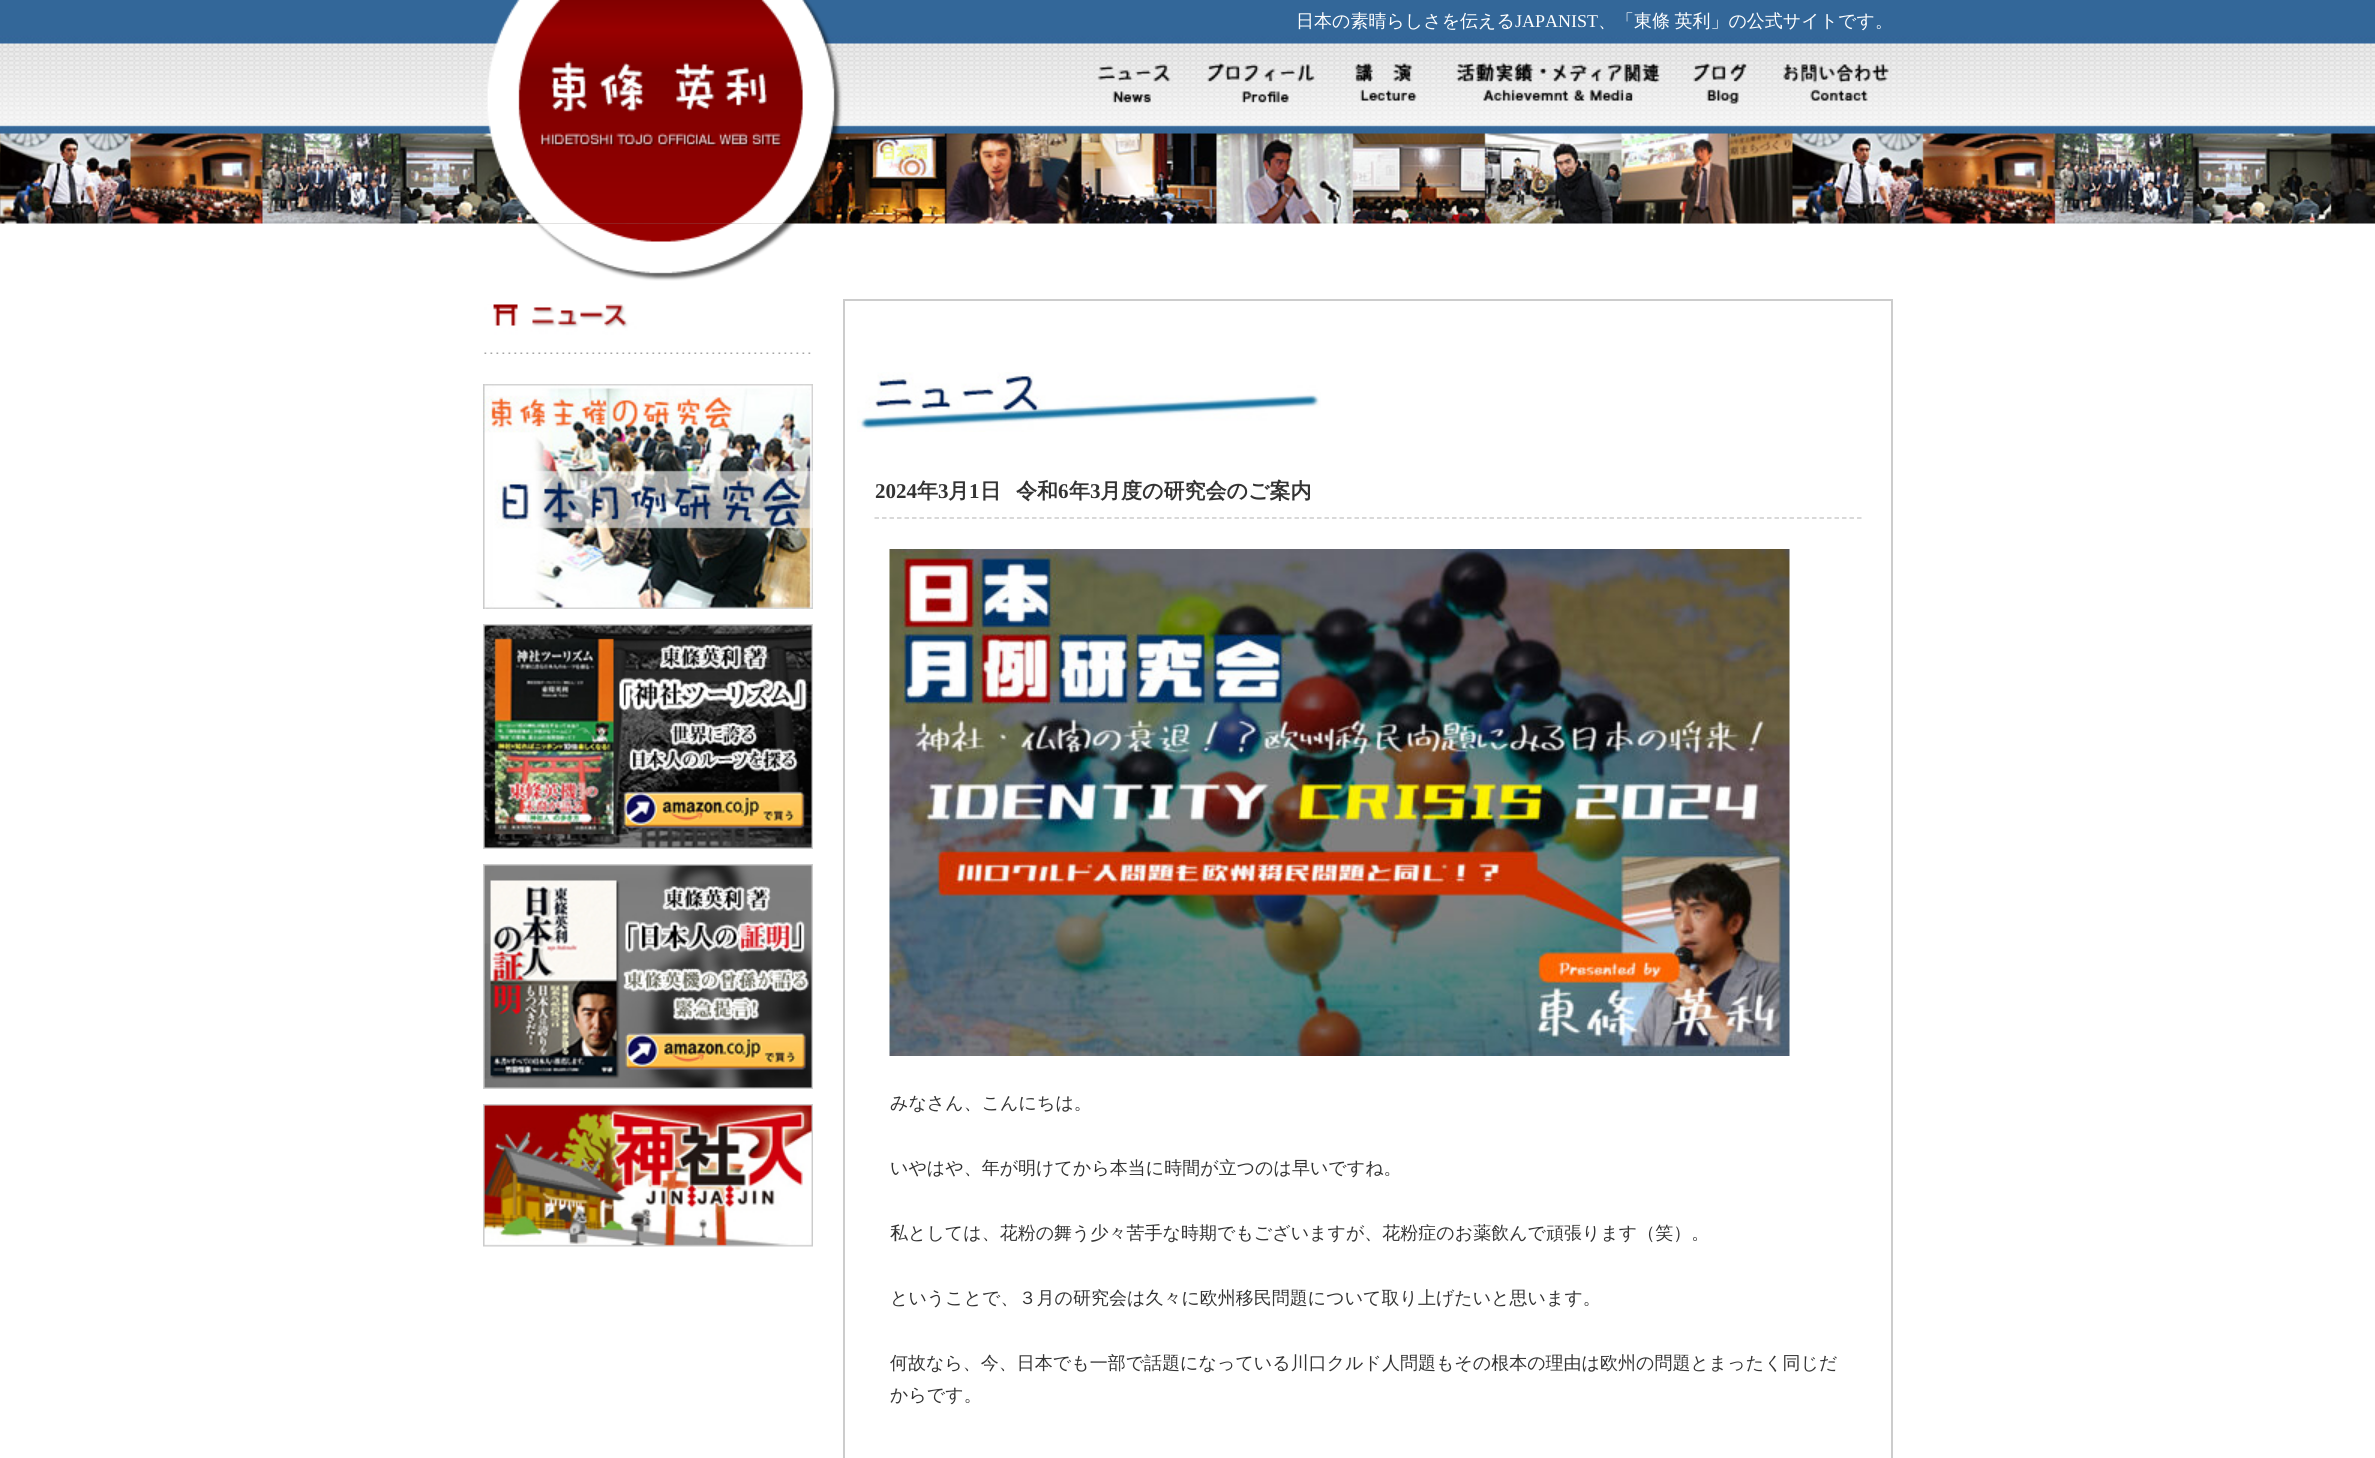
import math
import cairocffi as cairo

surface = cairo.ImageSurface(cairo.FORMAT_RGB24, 2375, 1458)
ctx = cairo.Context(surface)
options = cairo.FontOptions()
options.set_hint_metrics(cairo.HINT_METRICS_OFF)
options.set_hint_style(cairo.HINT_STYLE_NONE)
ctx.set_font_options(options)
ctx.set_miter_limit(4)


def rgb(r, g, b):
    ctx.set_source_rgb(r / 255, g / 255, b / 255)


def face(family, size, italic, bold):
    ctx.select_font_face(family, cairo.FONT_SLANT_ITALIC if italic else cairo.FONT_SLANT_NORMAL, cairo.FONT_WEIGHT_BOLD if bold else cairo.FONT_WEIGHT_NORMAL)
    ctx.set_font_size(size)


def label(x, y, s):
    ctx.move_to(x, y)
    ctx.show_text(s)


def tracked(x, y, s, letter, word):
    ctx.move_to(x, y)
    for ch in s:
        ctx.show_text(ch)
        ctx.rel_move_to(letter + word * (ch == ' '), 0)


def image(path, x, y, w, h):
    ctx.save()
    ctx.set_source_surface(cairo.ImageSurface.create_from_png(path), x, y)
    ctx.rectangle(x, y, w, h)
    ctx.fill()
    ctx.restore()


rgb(255, 255, 255)
ctx.paint()
image('image0.png', 0, 0, 2375, 224)
image('image8.png', 536, 223, 259, 58)
image('image1.png', 487, 0, 355, 224)
face('WenQuanYi Zen Hei Medium', 18, 0, 0)
rgb(255, 255, 255)
label(1296, 27, '日本の素晴らしさを伝える')
face('Liberation Serif', 18, 0, 0)
label(1515, 27, 'JAPANIST')
face('WenQuanYi Zen Hei Medium', 18, 0, 0)
tracked(1598, 27, '、「東條 英利」の公式サイトです。', 0, -1)
image('image2.png', 1097, 64, 74, 39)
image('image3.png', 1207, 62, 108, 41)
image('image4.png', 1354, 62, 63, 39)
image('image5.png', 1456, 62, 204, 39)
image('image6.png', 1693, 63, 54, 41)
image('image7.png', 1783, 64, 106, 37)
image('image9.png', 484, 304, 327, 50)
image('image10.png', 483, 384, 330, 225)
image('image11.png', 483, 624, 330, 225)
image('image12.png', 483, 864, 330, 225)
image('image13.png', 483, 1104, 330, 143)
image('image14.png', 857, 372, 464, 60)
ctx.rectangle(844, 300, 1048, 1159)
rgb(204, 204, 204)
ctx.stroke()
ctx.new_path()
ctx.move_to(874.5, 518)
ctx.line_to(1861.5, 518)
ctx.set_line_width(1.5)
ctx.set_dash([4.5, 3])
ctx.stroke()
face('Liberation Serif', 21, 0, 1)
rgb(51, 51, 51)
label(875, 498, '2024')
face('WenQuanYi Zen Hei', 21, 0, 1)
label(917, 498, '年')
face('Liberation Serif', 21, 0, 1)
label(938, 498, '3')
face('WenQuanYi Zen Hei', 21, 0, 1)
label(948, 498, '月')
face('Liberation Serif', 21, 0, 1)
label(969, 498, '1')
face('WenQuanYi Zen Hei', 21, 0, 1)
label(980, 498, '日')
label(1016, 498, '令和')
face('Liberation Serif', 21, 0, 1)
label(1058, 498, '6')
face('WenQuanYi Zen Hei', 21, 0, 1)
label(1069, 498, '年')
face('Liberation Serif', 21, 0, 1)
label(1090, 498, '3')
face('WenQuanYi Zen Hei', 21, 0, 1)
label(1100, 498, '月度の研究会のご案内')
image('image15.png', 889, 549, 901, 507)
face('WenQuanYi Zen Hei Medium', 18, 0, 0)
label(890, 1109, 'みなさん、こんにちは。')
label(890, 1174, 'いやはや、年が明けてから本当に時間が立つのは早いですね。')
label(890, 1239, '私としては、花粉の舞う少々苦手な時期でもございますが、花粉症のお薬飲んで頑張ります（笑）。')
label(890, 1304, 'ということで、３月の研究会は久々に欧州移民問題について取り上げたいと思います。')
label(890, 1369, '何故なら、今、日本でも一部で話題になっている川口クルド人問題もその根本の理由は欧州の問題とまったく同じだ')
label(890, 1401, 'からです。')
surface.write_to_png('render.png')
